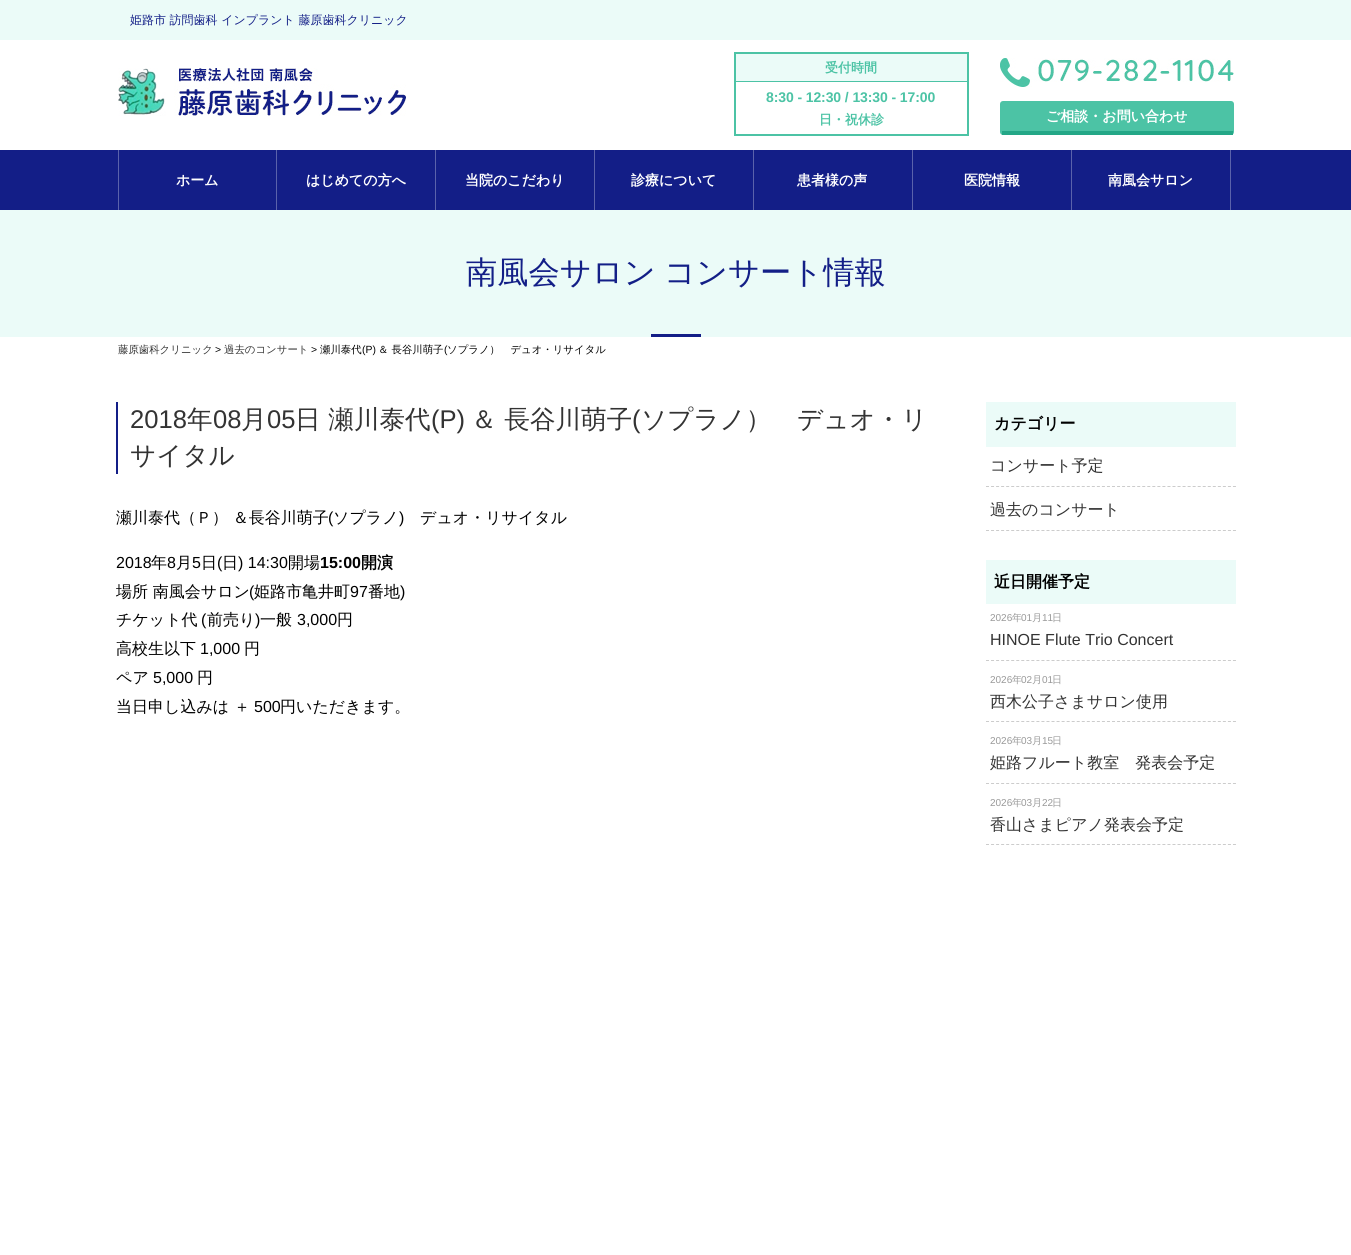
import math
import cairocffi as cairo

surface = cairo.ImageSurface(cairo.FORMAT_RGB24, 1351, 1255)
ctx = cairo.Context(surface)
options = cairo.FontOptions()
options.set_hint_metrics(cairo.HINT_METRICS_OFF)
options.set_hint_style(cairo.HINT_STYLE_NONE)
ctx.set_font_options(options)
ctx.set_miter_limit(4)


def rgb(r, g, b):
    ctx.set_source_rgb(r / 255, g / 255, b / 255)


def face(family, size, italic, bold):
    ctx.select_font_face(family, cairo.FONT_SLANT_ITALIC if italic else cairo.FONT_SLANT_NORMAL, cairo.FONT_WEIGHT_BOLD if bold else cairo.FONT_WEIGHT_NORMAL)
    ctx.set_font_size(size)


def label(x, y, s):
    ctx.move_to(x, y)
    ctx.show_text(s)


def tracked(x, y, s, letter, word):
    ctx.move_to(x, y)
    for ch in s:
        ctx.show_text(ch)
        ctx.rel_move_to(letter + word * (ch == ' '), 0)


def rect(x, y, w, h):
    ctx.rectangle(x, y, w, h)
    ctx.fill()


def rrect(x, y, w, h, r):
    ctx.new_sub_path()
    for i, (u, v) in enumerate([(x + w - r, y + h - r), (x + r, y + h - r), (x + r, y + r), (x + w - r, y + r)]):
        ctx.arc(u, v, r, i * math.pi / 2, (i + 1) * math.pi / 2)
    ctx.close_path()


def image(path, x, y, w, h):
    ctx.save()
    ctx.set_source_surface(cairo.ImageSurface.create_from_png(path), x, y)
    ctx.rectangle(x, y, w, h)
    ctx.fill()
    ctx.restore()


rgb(255, 255, 255)
ctx.paint()
rgb(235, 251, 248)
rect(0, 0, 1351, 40)
face('WenQuanYi Zen Hei Medium', 12, 0, 0)
rgb(19, 31, 135)
label(130, 24, '姫路市 訪問歯科 インプラント 藤原歯科クリニック')
image('image0.png', 118, 68, 288, 48)
ctx.rectangle(735, 53, 233, 82)
rgb(76, 195, 165)
ctx.stroke()
rgb(235, 251, 248)
rect(736, 54, 231, 27)
rgb(76, 195, 165)
rect(736, 81, 231, 1)
face('WenQuanYi Zen Hei', 13, 0, 1)
label(825, 72, '受付時間')
face('Liberation Sans', 14, 0, 1)
tracked(766, 102, '8:30 - 12:30 / 13:30 - 17:00', -0.1, 0)
face('WenQuanYi Zen Hei', 13, 0, 1)
label(819, 124, '日・祝休診')
image('image1.png', 1000, 58, 234, 29)
rrect(1000, 101, 234, 34, 3)
ctx.fill()
rgb(36, 167, 135)
rect(1002, 131, 231, 4)
face('WenQuanYi Zen Hei', 14, 0, 1)
rgb(255, 255, 255)
label(1046, 121, 'ご相談・お問い合わせ')
rgb(19, 30, 135)
rect(0, 150, 1351, 60)
rgb(90, 98, 171)
rect(276, 150, 1, 60)
rect(118, 150, 1, 60)
rgb(255, 255, 255)
label(176, 185, 'ホーム')
rgb(90, 98, 171)
rect(435, 150, 1, 60)
rgb(255, 255, 255)
label(306, 185, 'はじめての方へ')
rgb(90, 98, 171)
rect(594, 150, 1, 60)
rgb(255, 255, 255)
label(465, 185, '当院のこだわり')
rgb(90, 98, 171)
rect(753, 150, 1, 60)
rgb(255, 255, 255)
label(631, 185, '診療について')
rgb(90, 98, 171)
rect(912, 150, 1, 60)
rgb(255, 255, 255)
label(797, 185, '患者様の声')
rgb(90, 98, 171)
rect(1071, 150, 1, 60)
rgb(255, 255, 255)
label(964, 185, '医院情報')
rgb(90, 98, 171)
rect(1230, 150, 1, 60)
rgb(255, 255, 255)
label(1108, 185, '南風会サロン')
rgb(235, 251, 248)
rect(0, 210, 1351, 127)
face('WenQuanYi Zen Hei Medium', 31.25, 0, 0)
rgb(19, 31, 135)
tracked(466, 283, '南風会サロン コンサート情報', 0, -1)
rgb(19, 30, 135)
rect(651, 334, 50, 3)
face('WenQuanYi Zen Hei Medium', 10.4, 0, 0)
rgb(51, 51, 51)
label(118, 353, '藤原歯科クリニック')
face('Liberation Sans', 10.4, 0, 0)
rgb(0, 0, 0)
label(215, 353, '>')
face('WenQuanYi Zen Hei Medium', 10.4, 0, 0)
rgb(51, 51, 51)
label(224, 353, '過去のコンサート')
face('Liberation Sans', 10.4, 0, 0)
rgb(0, 0, 0)
label(311, 353, '>')
face('WenQuanYi Zen Hei Medium', 10.4, 0, 0)
label(320, 353, '瀬川泰代')
face('Liberation Sans', 10.4, 0, 0)
label(362, 353, '(P)')
face('WenQuanYi Zen Hei Medium', 10.4, 0, 0)
label(378, 353, '＆ 長谷川萌子')
face('Liberation Sans', 10.4, 0, 0)
label(444, 353, '(')
face('WenQuanYi Zen Hei Medium', 10.4, 0, 0)
label(447, 353, 'ソプラノ）　デュオ・リサイタル')
rgb(19, 30, 135)
rect(116, 402, 2, 72)
face('Liberation Sans', 25.6, 0, 0)
rgb(51, 51, 51)
label(130, 428, '2018')
face('WenQuanYi Zen Hei Medium', 25.6, 0, 0)
label(187, 428, '年')
face('Liberation Sans', 25.6, 0, 0)
label(213, 428, '08')
face('WenQuanYi Zen Hei Medium', 25.6, 0, 0)
label(241, 428, '月')
face('Liberation Sans', 25.6, 0, 0)
label(267, 428, '05')
face('WenQuanYi Zen Hei Medium', 25.6, 0, 0)
label(295, 428, '日 瀬川泰代')
face('Liberation Sans', 25.6, 0, 0)
label(431, 428, '(P)')
face('WenQuanYi Zen Hei Medium', 25.6, 0, 0)
label(471, 428, '＆ 長谷川萌子')
face('Liberation Sans', 25.6, 0, 0)
label(632, 428, '(')
face('WenQuanYi Zen Hei Medium', 25.6, 0, 0)
label(641, 428, 'ソプラノ）　デュオ・リ')
label(130, 464, 'サイタル')
face('WenQuanYi Zen Hei Medium', 16, 0, 0)
rgb(0, 0, 0)
label(116, 523, '瀬川泰代（Ｐ） ＆長谷川萌子')
face('Liberation Sans', 16, 0, 0)
label(328, 523, '(')
face('WenQuanYi Zen Hei Medium', 16, 0, 0)
label(333, 523, 'ソプラノ')
face('Liberation Sans', 16, 0, 0)
label(399, 523, ')')
face('WenQuanYi Zen Hei Medium', 16, 0, 0)
label(420, 523, 'デュオ・リサイタル')
face('Liberation Sans', 16, 0, 0)
label(116, 568, '2018')
face('WenQuanYi Zen Hei Medium', 16, 0, 0)
label(151, 568, '年')
face('Liberation Sans', 16, 0, 0)
label(167, 568, '8')
face('WenQuanYi Zen Hei Medium', 16, 0, 0)
label(176, 568, '月')
face('Liberation Sans', 16, 0, 0)
label(192, 568, '5')
face('WenQuanYi Zen Hei Medium', 16, 0, 0)
label(201, 568, '日')
face('Liberation Sans', 16, 0, 0)
label(217, 568, '(')
face('WenQuanYi Zen Hei Medium', 16, 0, 0)
label(222, 568, '日')
face('Liberation Sans', 16, 0, 0)
label(238, 568, ') 14:30')
face('WenQuanYi Zen Hei Medium', 16, 0, 0)
label(288, 568, '開場')
face('Liberation Sans', 16, 0, 1)
label(320, 568, '15:00')
face('WenQuanYi Zen Hei', 16, 0, 1)
label(361, 568, '開演')
ctx.save()
ctx.rectangle(116, 402, 1120, 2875)
ctx.clip()
face('WenQuanYi Zen Hei Medium', 16, 0, 0)
label(116, 597, '場所 南風会サロン')
ctx.restore()
face('Liberation Sans', 16, 0, 0)
label(249, 597, '(')
face('WenQuanYi Zen Hei Medium', 16, 0, 0)
label(254, 597, '姫路市亀井町')
face('Liberation Sans', 16, 0, 0)
label(350, 597, '97')
face('WenQuanYi Zen Hei Medium', 16, 0, 0)
label(368, 597, '番地')
face('Liberation Sans', 16, 0, 0)
label(400, 597, ')')
face('WenQuanYi Zen Hei Medium', 16, 0, 0)
label(116, 625, 'チケット代')
face('Liberation Sans', 16, 0, 0)
label(201, 625, '(')
face('WenQuanYi Zen Hei Medium', 16, 0, 0)
label(207, 625, '前売り')
face('Liberation Sans', 16, 0, 0)
label(255, 625, ')')
face('WenQuanYi Zen Hei Medium', 16, 0, 0)
label(260, 625, '一般')
face('Liberation Sans', 16, 0, 0)
label(297, 625, '3,000')
face('WenQuanYi Zen Hei Medium', 16, 0, 0)
label(337, 625, '円')
label(116, 654, '高校生以下')
face('Liberation Sans', 16, 0, 0)
label(200, 654, '1,000')
face('WenQuanYi Zen Hei Medium', 16, 0, 0)
label(244, 654, '円')
label(116, 683, 'ペア')
face('Liberation Sans', 16, 0, 0)
label(153, 683, '5,000')
face('WenQuanYi Zen Hei Medium', 16, 0, 0)
label(197, 683, '円')
label(116, 712, '当日申し込みは ＋')
face('Liberation Sans', 16, 0, 0)
label(254, 712, '500')
face('WenQuanYi Zen Hei Medium', 16, 0, 0)
label(280, 712, '円いただきます。')
rgb(235, 251, 248)
rect(986, 402, 250, 45)
face('WenQuanYi Zen Hei', 16, 0, 1)
rgb(0, 0, 0)
label(994, 429, 'カテゴリー')
ctx.new_path()
ctx.move_to(986, 486.5)
ctx.line_to(1236, 486.5)
rgb(204, 204, 204)
ctx.set_line_width(1)
ctx.set_dash([3, 2.04])
ctx.stroke()
face('WenQuanYi Zen Hei Medium', 16, 0, 0)
rgb(51, 51, 51)
label(990, 471, 'コンサート予定')
ctx.new_path()
ctx.move_to(986, 530.5)
ctx.line_to(1236, 530.5)
rgb(204, 204, 204)
ctx.stroke()
rgb(51, 51, 51)
label(990, 515, '過去のコンサート')
rgb(235, 251, 248)
rect(986, 560, 250, 44)
face('WenQuanYi Zen Hei', 16, 0, 1)
rgb(0, 0, 0)
label(994, 587, '近日開催予定')
ctx.new_path()
ctx.move_to(986, 660.5)
ctx.line_to(1236, 660.5)
rgb(204, 204, 204)
ctx.stroke()
face('Liberation Sans', 10, 0, 0)
rgb(153, 153, 153)
label(990, 621, '2026')
face('WenQuanYi Zen Hei Medium', 10, 0, 0)
label(1012, 621, '年')
face('Liberation Sans', 10, 0, 0)
label(1021, 621, '01')
face('WenQuanYi Zen Hei Medium', 10, 0, 0)
label(1032, 621, '月')
face('Liberation Sans', 10, 0, 0)
label(1042, 621, '11')
face('WenQuanYi Zen Hei Medium', 10, 0, 0)
label(1052, 621, '日')
face('Liberation Sans', 16, 0, 0)
rgb(51, 51, 51)
label(990, 645, 'HINOE Flute Trio Concert')
ctx.new_path()
ctx.move_to(986, 721.5)
ctx.line_to(1236, 721.5)
rgb(204, 204, 204)
ctx.stroke()
face('Liberation Sans', 10, 0, 0)
rgb(153, 153, 153)
label(990, 683, '2026')
face('WenQuanYi Zen Hei Medium', 10, 0, 0)
label(1012, 683, '年')
face('Liberation Sans', 10, 0, 0)
label(1021, 683, '02')
face('WenQuanYi Zen Hei Medium', 10, 0, 0)
label(1032, 683, '月')
face('Liberation Sans', 10, 0, 0)
label(1042, 683, '01')
face('WenQuanYi Zen Hei Medium', 10, 0, 0)
label(1052, 683, '日')
face('WenQuanYi Zen Hei Medium', 16, 0, 0)
rgb(51, 51, 51)
label(990, 707, '西木公子さまサロン使用')
ctx.new_path()
ctx.move_to(986, 783.5)
ctx.line_to(1236, 783.5)
rgb(204, 204, 204)
ctx.stroke()
face('Liberation Sans', 10, 0, 0)
rgb(153, 153, 153)
label(990, 744, '2026')
face('WenQuanYi Zen Hei Medium', 10, 0, 0)
label(1012, 744, '年')
face('Liberation Sans', 10, 0, 0)
label(1021, 744, '03')
face('WenQuanYi Zen Hei Medium', 10, 0, 0)
label(1032, 744, '月')
face('Liberation Sans', 10, 0, 0)
label(1042, 744, '15')
face('WenQuanYi Zen Hei Medium', 10, 0, 0)
label(1052, 744, '日')
face('WenQuanYi Zen Hei Medium', 16, 0, 0)
rgb(51, 51, 51)
label(990, 768, '姫路フルート教室　発表会予定')
ctx.new_path()
ctx.move_to(986, 844.5)
ctx.line_to(1236, 844.5)
rgb(204, 204, 204)
ctx.stroke()
face('Liberation Sans', 10, 0, 0)
rgb(153, 153, 153)
label(990, 806, '2026')
face('WenQuanYi Zen Hei Medium', 10, 0, 0)
label(1012, 806, '年')
face('Liberation Sans', 10, 0, 0)
label(1021, 806, '03')
face('WenQuanYi Zen Hei Medium', 10, 0, 0)
label(1032, 806, '月')
face('Liberation Sans', 10, 0, 0)
label(1042, 806, '22')
face('WenQuanYi Zen Hei Medium', 10, 0, 0)
label(1052, 806, '日')
face('WenQuanYi Zen Hei Medium', 16, 0, 0)
rgb(51, 51, 51)
label(990, 830, '香山さまピアノ発表会予定')
surface.write_to_png('render.png')
